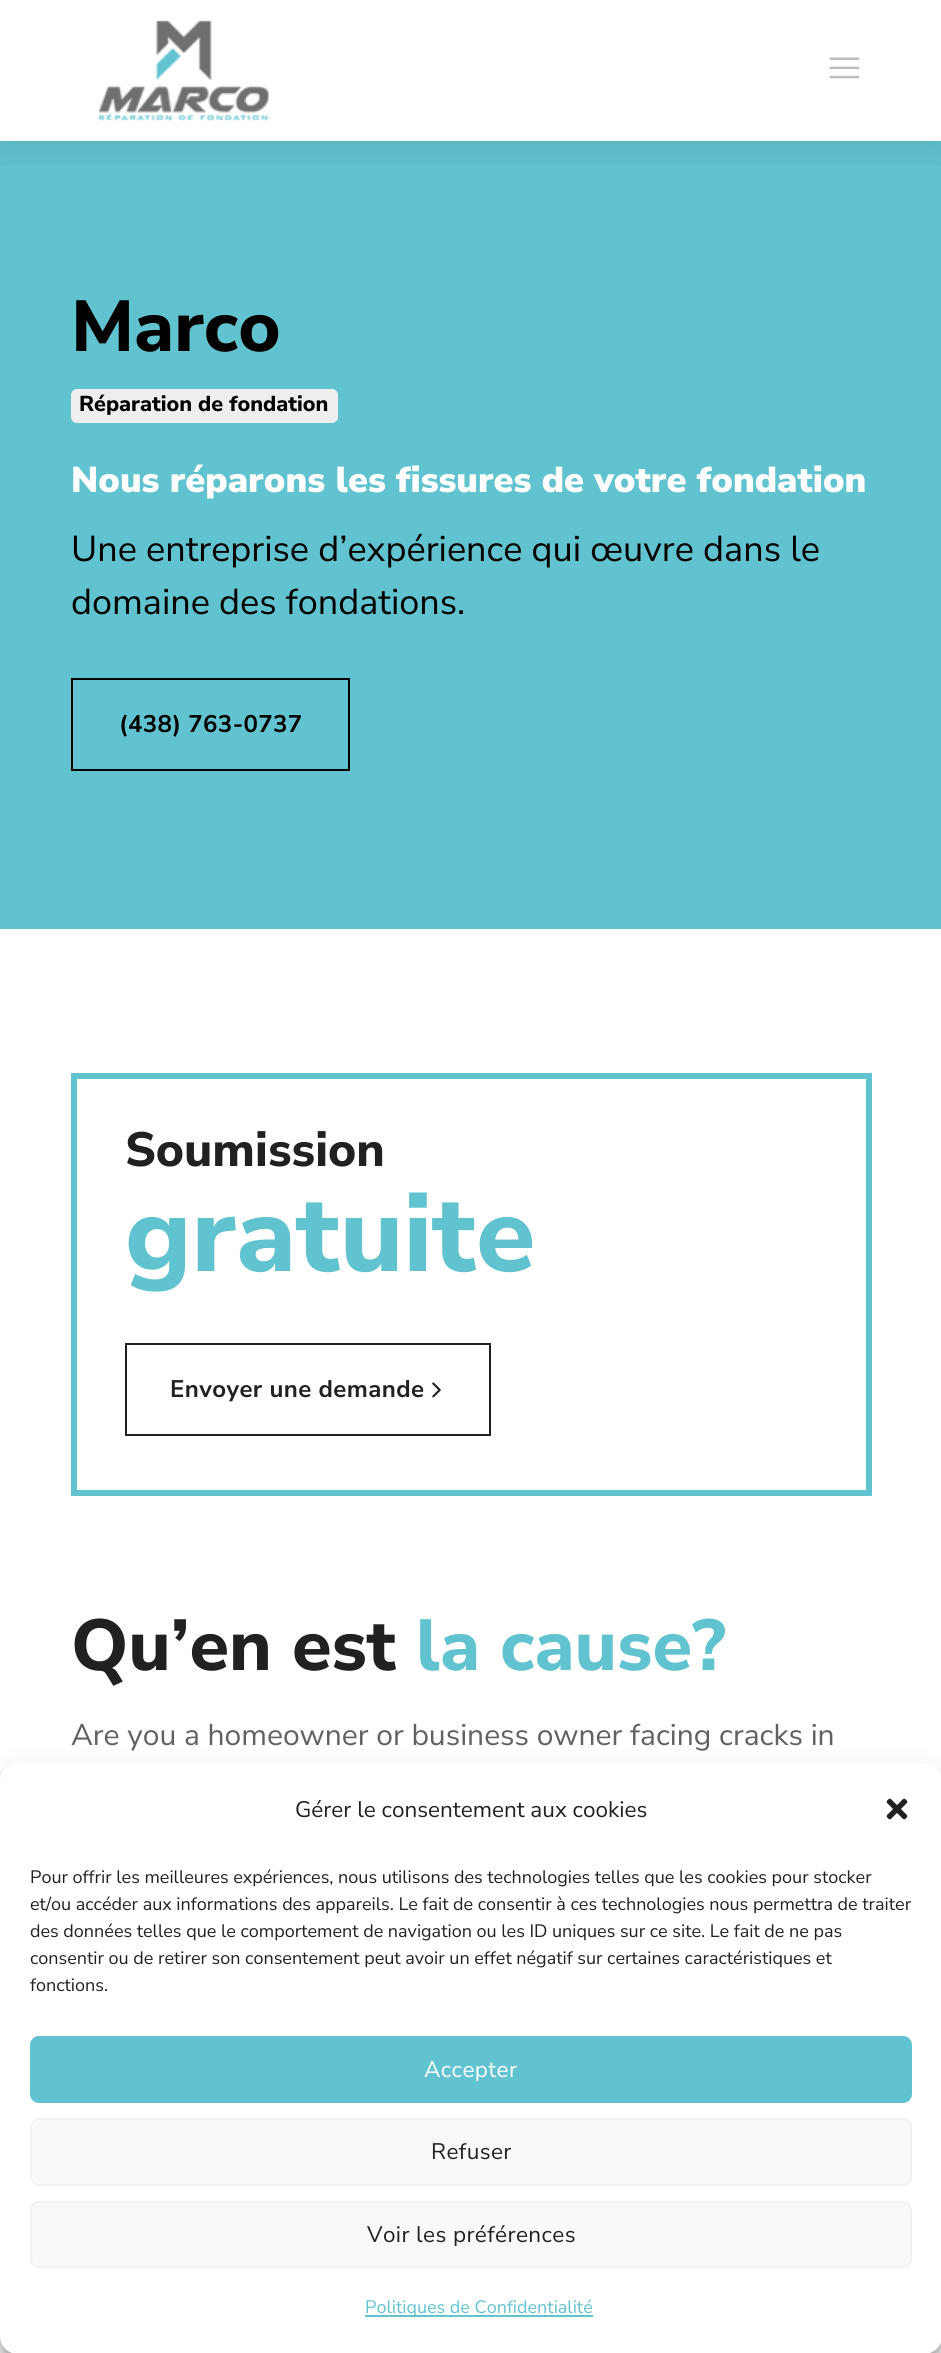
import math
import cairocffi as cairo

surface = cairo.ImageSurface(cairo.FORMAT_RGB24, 941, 2353)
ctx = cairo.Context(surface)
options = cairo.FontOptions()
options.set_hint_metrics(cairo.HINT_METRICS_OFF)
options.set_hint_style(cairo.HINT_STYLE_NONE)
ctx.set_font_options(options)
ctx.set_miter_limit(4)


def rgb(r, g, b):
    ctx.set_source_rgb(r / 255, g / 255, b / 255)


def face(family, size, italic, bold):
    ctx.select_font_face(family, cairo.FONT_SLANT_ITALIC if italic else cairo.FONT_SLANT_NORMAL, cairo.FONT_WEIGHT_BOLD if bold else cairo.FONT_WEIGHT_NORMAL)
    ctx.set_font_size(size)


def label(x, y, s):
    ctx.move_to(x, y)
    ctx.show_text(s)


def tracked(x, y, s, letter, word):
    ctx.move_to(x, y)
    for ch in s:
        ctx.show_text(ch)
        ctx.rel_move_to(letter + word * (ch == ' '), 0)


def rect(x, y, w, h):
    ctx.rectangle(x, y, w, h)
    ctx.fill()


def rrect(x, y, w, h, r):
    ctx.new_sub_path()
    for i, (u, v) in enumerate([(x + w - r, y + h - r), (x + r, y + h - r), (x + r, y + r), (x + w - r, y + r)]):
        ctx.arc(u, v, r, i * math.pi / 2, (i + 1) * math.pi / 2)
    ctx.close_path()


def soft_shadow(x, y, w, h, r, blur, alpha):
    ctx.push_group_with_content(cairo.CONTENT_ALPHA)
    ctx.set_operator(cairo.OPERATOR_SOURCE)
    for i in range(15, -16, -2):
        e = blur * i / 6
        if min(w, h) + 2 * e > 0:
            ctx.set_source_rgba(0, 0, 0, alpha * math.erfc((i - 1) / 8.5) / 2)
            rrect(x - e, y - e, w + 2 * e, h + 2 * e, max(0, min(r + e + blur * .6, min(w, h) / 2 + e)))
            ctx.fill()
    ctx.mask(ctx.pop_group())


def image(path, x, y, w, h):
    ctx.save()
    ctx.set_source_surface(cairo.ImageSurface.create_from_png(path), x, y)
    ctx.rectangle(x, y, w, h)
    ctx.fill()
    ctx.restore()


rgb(255, 255, 255)
ctx.paint()
rgb(97, 194, 208)
rect(0, 141, 941, 788)
ctx.save()
ctx.rectangle(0, 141, 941, 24)
ctx.clip()
rgb(0, 0, 0)
soft_shadow(0, 12, 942, 141, 0, 18, 0.08)
ctx.restore()
image('image0.png', 98, 20, 171, 101)
image('image1.png', 829, 57, 31, 22)
face('Nunito Sans ExtraBold', 72, 0, 0)
rgb(0, 0, 0)
label(71, 351, 'Marco')
rgb(238, 238, 238)
rrect(71, 389, 267, 34, 6)
ctx.fill()
face('Nunito Sans ExtraBold', 21.6, 0, 0)
rgb(0, 0, 0)
label(79, 411, 'Réparation de fondation')
face('Nunito Sans Black', 36, 0, 0)
rgb(255, 255, 255)
label(71, 492, 'Nous réparons les fissures de votre fondation')
face('Nunito Sans', 36, 0, 0)
rgb(0, 0, 0)
label(71, 561, 'Une entreprise d’expérience qui œuvre dans le')
label(71, 614, 'domaine des fondations.')
ctx.rectangle(72, 679, 277, 91)
ctx.stroke()
face('Nunito Sans', 24, 0, 1)
tracked(119, 732, '(438) 763-0737', 0.4, 0)
ctx.rectangle(74, 1076, 795, 417)
rgb(97, 194, 208)
ctx.set_line_width(6)
ctx.stroke()
face('Nunito Sans ExtraBold', 48, 0, 0)
rgb(33, 33, 33)
label(125, 1166, 'Soumission')
face('Nunito Sans ExtraBold', 108, 0, 0)
rgb(97, 194, 208)
label(125, 1271, 'gratuite')
ctx.rectangle(126, 1344, 364, 91)
rgb(33, 33, 33)
ctx.set_line_width(2)
ctx.stroke()
face('Nunito Sans', 24, 0, 1)
tracked(170, 1397, 'Envoyer une demande', 0.4, 0)
image('image2.png', 432, 1382, 9, 16)
face('Nunito Sans ExtraBold', 72, 0, 0)
label(71, 1670, 'Qu’en est')
rgb(97, 194, 208)
label(416, 1670, 'la cause?')
face('Nunito Sans', 30, 0, 0)
rgb(97, 97, 97)
label(71, 1745, 'Are you a homeowner or business owner facing cracks in')
rgb(0, 0, 0)
soft_shadow(0, 1772, 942, 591, 18, 4.5, 0.23)
soft_shadow(0, 1778, 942, 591, 18, 15, 0.19)
rgb(255, 255, 255)
rrect(0, 1763, 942, 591, 18)
ctx.fill()
face('Nunito Sans', 22.5, 0, 0)
rgb(33, 33, 33)
label(295, 1817, 'Gérer le consentement aux cookies')
image('image3.png', 886, 1798, 22, 22)
face('Nunito Sans', 18, 0, 0)
label(30, 1883, 'Pour offrir les meilleures expériences, nous utilisons des technologies telles que les cookies pour stocker')
label(30, 1910, 'et/ou accéder aux informations des appareils. Le fait de consentir à ces technologies nous permettra de traiter')
label(30, 1937, 'des données telles que le comportement de navigation ou les ID uniques sur ce site. Le fait de ne pas')
label(30, 1964, 'consentir ou de retirer son consentement peut avoir un effet négatif sur certaines caractéristiques et')
label(30, 1991, 'fonctions.')
rgb(97, 194, 208)
rrect(31, 2037, 880, 65, 8)
ctx.fill_preserve()
ctx.stroke()
face('Nunito Sans', 22.5, 0, 0)
rgb(255, 255, 255)
tracked(424, 2077, 'Accepter', 0.4, 0)
rgb(249, 249, 249)
rrect(31, 2119, 880, 66, 8)
ctx.fill_preserve()
rgb(242, 242, 242)
ctx.stroke()
rgb(33, 33, 33)
tracked(431, 2159, 'Refuser', 0.4, 0)
rgb(249, 249, 249)
rrect(31, 2202, 880, 65, 8)
ctx.fill_preserve()
rgb(242, 242, 242)
ctx.stroke()
rgb(33, 33, 33)
tracked(367, 2242, 'Voir les préférences', 0.4, 0)
rgb(97, 194, 208)
rect(365, 2315, 228, 2)
face('Nunito Sans', 18, 0, 0)
label(365, 2313, 'Politiques de Confidentialité')
surface.write_to_png('render.png')
